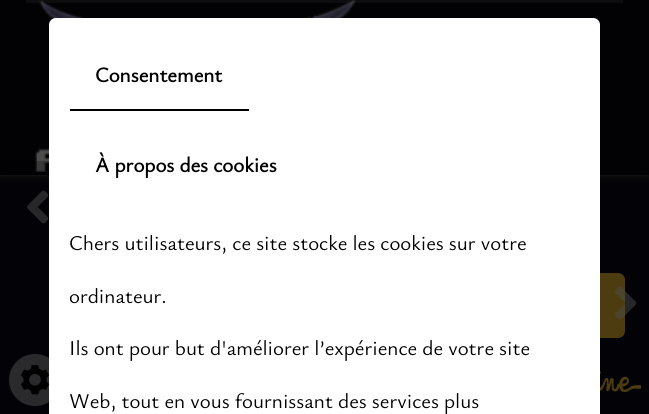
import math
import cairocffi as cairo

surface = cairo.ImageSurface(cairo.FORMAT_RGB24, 649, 414)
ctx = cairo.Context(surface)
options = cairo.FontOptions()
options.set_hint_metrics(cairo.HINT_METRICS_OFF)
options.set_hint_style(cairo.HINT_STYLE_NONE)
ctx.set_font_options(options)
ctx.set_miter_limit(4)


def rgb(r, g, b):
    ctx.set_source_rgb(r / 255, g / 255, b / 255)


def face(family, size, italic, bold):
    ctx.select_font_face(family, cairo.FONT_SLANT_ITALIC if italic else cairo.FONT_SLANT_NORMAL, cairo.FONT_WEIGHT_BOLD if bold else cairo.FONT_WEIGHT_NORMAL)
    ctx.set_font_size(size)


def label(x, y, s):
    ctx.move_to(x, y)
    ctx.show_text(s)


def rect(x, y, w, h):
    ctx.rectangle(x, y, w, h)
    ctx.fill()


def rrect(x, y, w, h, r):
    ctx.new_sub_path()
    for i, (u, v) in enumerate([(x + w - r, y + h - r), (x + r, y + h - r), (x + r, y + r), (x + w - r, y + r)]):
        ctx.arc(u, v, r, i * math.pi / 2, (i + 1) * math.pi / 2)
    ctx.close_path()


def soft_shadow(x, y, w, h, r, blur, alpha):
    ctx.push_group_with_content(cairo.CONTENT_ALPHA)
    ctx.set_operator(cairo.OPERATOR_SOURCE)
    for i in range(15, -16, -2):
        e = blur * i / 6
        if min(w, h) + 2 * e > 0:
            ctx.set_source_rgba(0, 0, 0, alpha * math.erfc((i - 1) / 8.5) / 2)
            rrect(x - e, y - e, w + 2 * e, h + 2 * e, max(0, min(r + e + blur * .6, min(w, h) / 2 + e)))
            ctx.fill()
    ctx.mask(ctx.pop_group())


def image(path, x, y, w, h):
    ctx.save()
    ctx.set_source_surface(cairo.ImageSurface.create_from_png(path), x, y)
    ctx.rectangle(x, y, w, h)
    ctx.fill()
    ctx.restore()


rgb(2, 2, 7)
ctx.paint()
rgb(77, 77, 77)
soft_shadow(0, 0, 649, 175, 0, 4.5, 0.5)
rgb(2, 2, 5)
rect(0, 0, 649, 175)
rgb(13, 12, 15)
rect(26, 0, 597, 3)
image('image0.png', 34, 0, 323, 172)
ctx.set_source_rgba(0, 0, 0, 0.25)
rect(0, 161, 49, 20)
image('image1.png', 27, 190, 22, 34)
rect(600, 175, 49, 6)
rgb(77, 60, 15)
rrect(548, 273, 77, 65, 7)
ctx.fill()
image('image2.png', 615, 286, 22, 34)
rgb(42, 42, 45)
ctx.arc(35, 380, 26, 0, 2 * math.pi)
ctx.fill()
rgb(255, 255, 255)
ctx.new_path()
ctx.move_to(56, 18)
ctx.line_to(593, 18)
ctx.curve_to(597, 18, 600, 21, 600, 25)
ctx.line_to(600, 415)
ctx.line_to(49, 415)
ctx.line_to(49, 25)
ctx.curve_to(49, 21, 52, 18, 56, 18)
ctx.close_path()
ctx.fill()
rgb(0, 0, 0)
rect(70, 109, 179, 2)
face('Ysabeau', 21, 0, 1)
label(95, 82, 'Consentement')
label(95, 172, 'À propos des cookies')
face('Ysabeau', 21, 0, 0)
label(69, 250, 'Chers utilisateurs, ce site stocke les cookies sur votre')
label(69, 303, 'ordinateur.')
label(69, 355, 'Ils ont pour but d\'améliorer l’expérience de votre site')
label(69, 408, 'Web, tout en vous fournissant des services plus')
image('image3.png', 20, 365, 29, 30)
image('image4.png', 600, 371, 41, 21)
surface.write_to_png('render.png')
